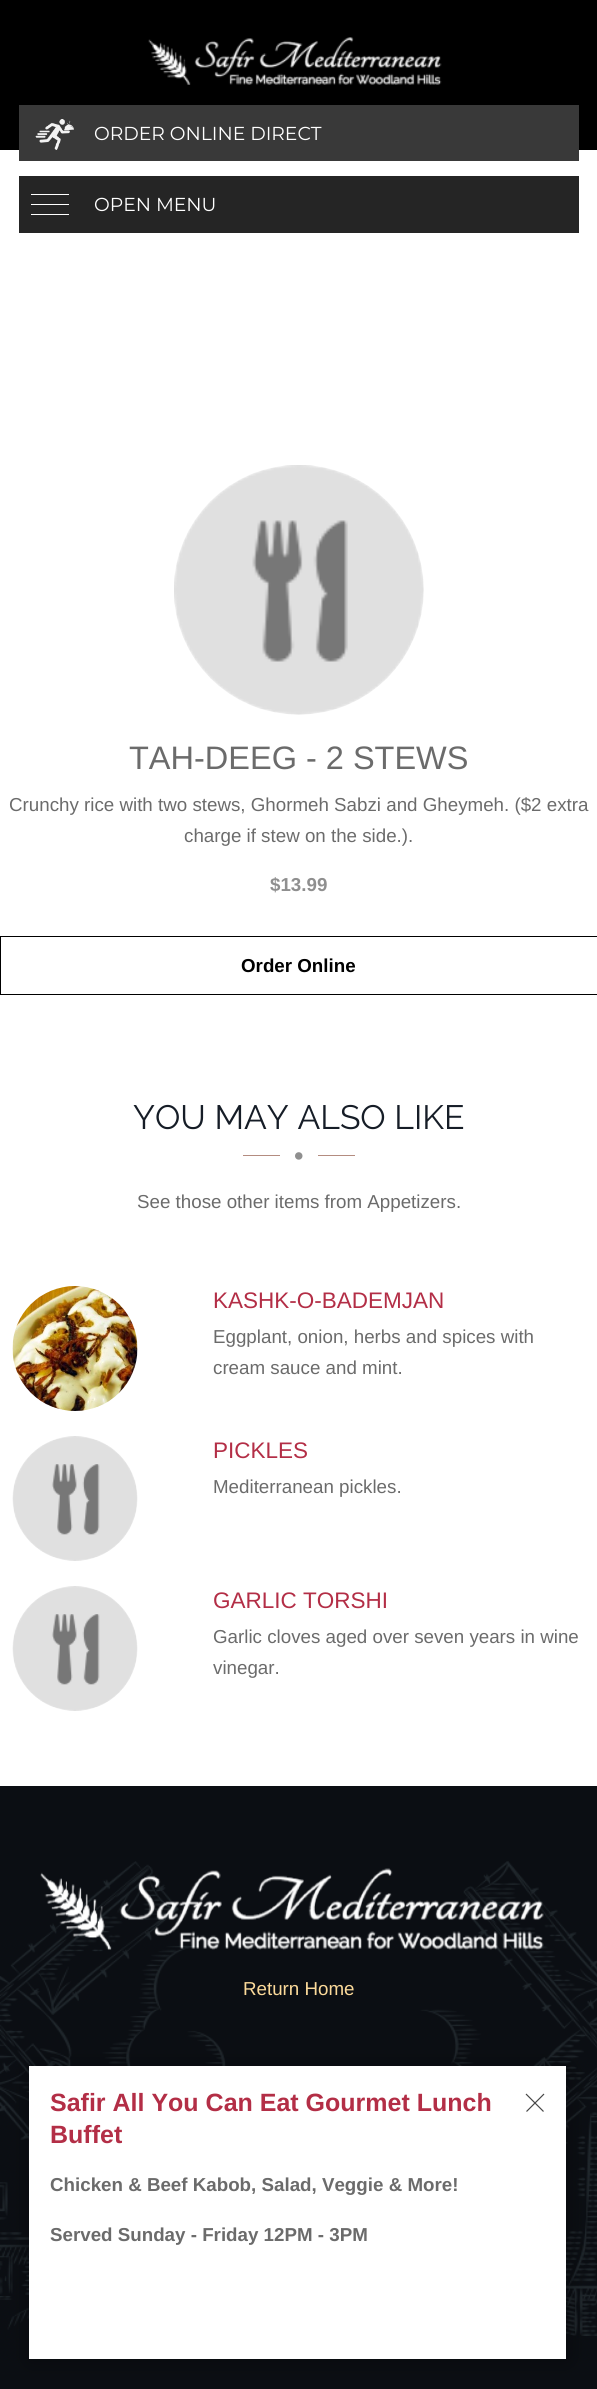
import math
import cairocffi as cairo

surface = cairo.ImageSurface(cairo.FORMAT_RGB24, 597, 2389)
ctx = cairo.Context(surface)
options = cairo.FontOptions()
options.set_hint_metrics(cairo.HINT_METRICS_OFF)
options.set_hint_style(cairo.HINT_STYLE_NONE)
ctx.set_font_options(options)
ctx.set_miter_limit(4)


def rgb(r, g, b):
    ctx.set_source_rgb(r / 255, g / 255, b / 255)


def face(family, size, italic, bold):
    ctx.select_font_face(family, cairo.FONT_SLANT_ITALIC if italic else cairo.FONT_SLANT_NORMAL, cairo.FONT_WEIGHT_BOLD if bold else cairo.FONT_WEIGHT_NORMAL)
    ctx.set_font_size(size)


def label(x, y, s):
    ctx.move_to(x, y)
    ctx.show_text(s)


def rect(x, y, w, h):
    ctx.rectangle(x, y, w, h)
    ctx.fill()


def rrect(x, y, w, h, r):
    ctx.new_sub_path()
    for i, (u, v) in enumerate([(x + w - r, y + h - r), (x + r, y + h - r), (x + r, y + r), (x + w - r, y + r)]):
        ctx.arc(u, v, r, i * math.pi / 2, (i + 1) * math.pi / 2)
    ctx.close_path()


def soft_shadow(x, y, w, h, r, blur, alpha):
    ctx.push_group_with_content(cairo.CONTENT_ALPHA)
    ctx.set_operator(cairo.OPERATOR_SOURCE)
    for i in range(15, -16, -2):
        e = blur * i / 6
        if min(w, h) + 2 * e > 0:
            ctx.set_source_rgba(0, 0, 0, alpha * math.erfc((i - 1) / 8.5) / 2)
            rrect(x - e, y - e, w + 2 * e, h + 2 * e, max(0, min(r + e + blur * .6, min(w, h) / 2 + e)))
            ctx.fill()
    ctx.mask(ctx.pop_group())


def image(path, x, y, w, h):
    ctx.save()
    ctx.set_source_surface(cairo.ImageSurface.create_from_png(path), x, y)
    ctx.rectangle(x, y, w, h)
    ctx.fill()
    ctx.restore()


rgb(255, 255, 255)
ctx.paint()
rgb(0, 0, 0)
rect(0, 0, 597, 150)
image('image0.png', 148, 37, 294, 48)
rgb(57, 57, 57)
rect(19, 105, 560, 56)
image('image1.png', 35, 119, 39, 31)
face('Montserrat', 18.75, 0, 0)
rgb(255, 255, 255)
label(94, 140, 'ORDER ONLINE DIRECT')
rgb(37, 37, 37)
rect(19, 176, 560, 57)
rgb(255, 255, 255)
rect(31, 214, 38, 1)
rect(31, 204, 38, 1)
rect(31, 194, 38, 1)
label(94, 211, 'OPEN MENU')
image('image2.png', 174, 465, 250, 250)
face('Liberation Sans', 32.5, 0, 0)
rgb(107, 107, 107)
label(129, 769, 'TAH-DEEG - 2 STEWS')
face('Liberation Sans', 18.75, 0, 0)
label(9, 811, 'Crunchy rice with two stews, Ghormeh Sabzi and Gheymeh. ($2 extra')
label(184, 842, 'charge if stew on the side.).')
face('Liberation Sans', 18.75, 0, 1)
rgb(143, 143, 143)
label(270, 891, '$13.99')
ctx.rectangle(0.5, 936.5, 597, 58)
rgb(0, 0, 0)
ctx.set_line_width(1)
ctx.stroke()
label(241, 972, 'Order Online')
face('Raleway Thin', 33.75, 0, 0)
rgb(22, 29, 39)
label(133, 1129, 'YOU MAY ALSO LIKE')
rgb(180, 140, 128)
rect(243, 1155, 37, 1)
image('image3.png', 295, 1152, 8, 8)
rect(318, 1155, 37, 1)
face('Liberation Sans', 18.75, 0, 0)
rgb(107, 107, 107)
label(137, 1208, 'See those other items from Appetizers.')
image('image4.png', 12, 1286, 126, 125)
face('Liberation Sans', 22.5, 0, 0)
rgb(179, 46, 70)
label(213, 1308, 'KASHK-O-BADEMJAN')
face('Liberation Sans', 18.75, 0, 0)
rgb(107, 107, 107)
label(213, 1343, 'Eggplant, onion, herbs and spices with')
label(213, 1374, 'cream sauce and mint.')
image('image5.png', 12, 1436, 126, 125)
face('Liberation Sans', 22.5, 0, 0)
rgb(179, 46, 70)
label(213, 1458, 'PICKLES')
face('Liberation Sans', 18.75, 0, 0)
rgb(107, 107, 107)
label(213, 1493, 'Mediterranean pickles.')
image('image6.png', 12, 1586, 126, 125)
face('Liberation Sans', 22.5, 0, 0)
rgb(179, 46, 70)
label(213, 1608, 'GARLIC TORSHI')
face('Liberation Sans', 18.75, 0, 0)
rgb(107, 107, 107)
label(213, 1643, 'Garlic cloves aged over seven years in wine')
label(213, 1674, 'vinegar.')
rgb(11, 14, 19)
rect(0, 1786, 597, 603)
image('image7.png', 0, 1861, 597, 475)
image('image8.png', 40, 1868, 504, 82)
rgb(252, 218, 154)
label(243, 1995, 'Return Home')
rgb(0, 0, 0)
soft_shadow(30, 2068, 538, 292, 0, 9.5, 0.34)
rgb(255, 255, 255)
rect(29, 2066, 537, 293)
face('Liberation Sans', 25, 0, 1)
rgb(179, 46, 70)
label(50, 2111, 'Safir All You Can Eat Gourmet Lunch')
label(50, 2143, 'Buffet')
ctx.new_path()
ctx.move_to(544, 2094)
ctx.line_to(526.5, 2111.5)
ctx.move_to(543.5, 2111.5)
ctx.line_to(526, 2094)
rgb(71, 71, 71)
ctx.set_line_width(1.2)
ctx.stroke()
face('Liberation Sans', 18.75, 0, 1)
rgb(107, 107, 107)
label(50, 2191, 'Chicken & Beef Kabob, Salad, Veggie & More!')
label(50, 2241, 'Served Sunday - Friday 12PM - 3PM')
surface.write_to_png('render.png')
